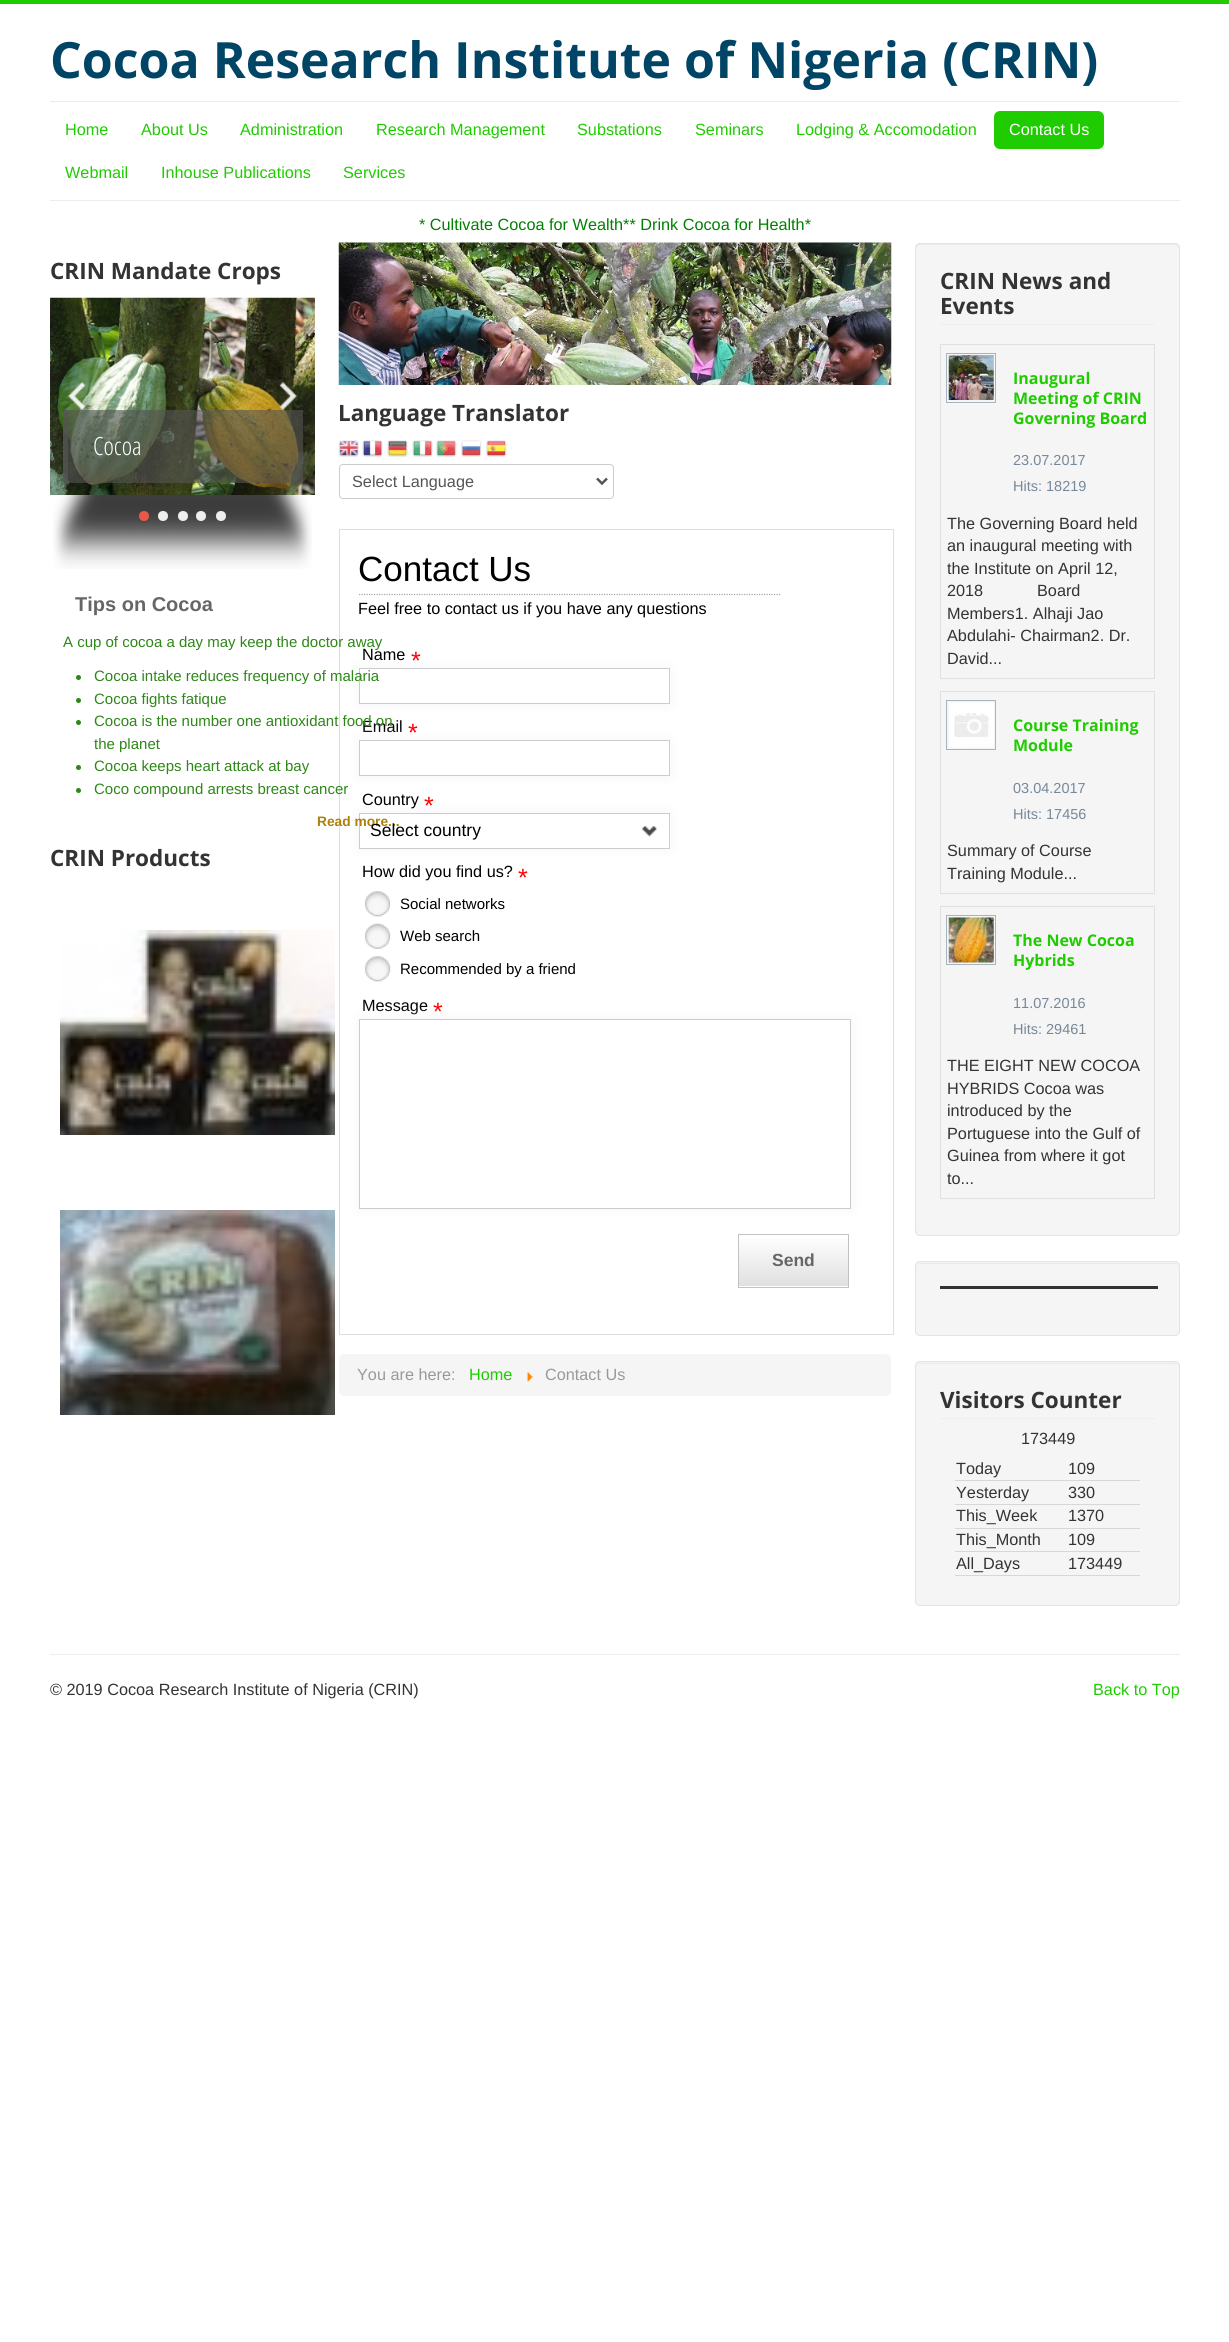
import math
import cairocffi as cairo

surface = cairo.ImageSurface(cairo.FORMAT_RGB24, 1229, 2342)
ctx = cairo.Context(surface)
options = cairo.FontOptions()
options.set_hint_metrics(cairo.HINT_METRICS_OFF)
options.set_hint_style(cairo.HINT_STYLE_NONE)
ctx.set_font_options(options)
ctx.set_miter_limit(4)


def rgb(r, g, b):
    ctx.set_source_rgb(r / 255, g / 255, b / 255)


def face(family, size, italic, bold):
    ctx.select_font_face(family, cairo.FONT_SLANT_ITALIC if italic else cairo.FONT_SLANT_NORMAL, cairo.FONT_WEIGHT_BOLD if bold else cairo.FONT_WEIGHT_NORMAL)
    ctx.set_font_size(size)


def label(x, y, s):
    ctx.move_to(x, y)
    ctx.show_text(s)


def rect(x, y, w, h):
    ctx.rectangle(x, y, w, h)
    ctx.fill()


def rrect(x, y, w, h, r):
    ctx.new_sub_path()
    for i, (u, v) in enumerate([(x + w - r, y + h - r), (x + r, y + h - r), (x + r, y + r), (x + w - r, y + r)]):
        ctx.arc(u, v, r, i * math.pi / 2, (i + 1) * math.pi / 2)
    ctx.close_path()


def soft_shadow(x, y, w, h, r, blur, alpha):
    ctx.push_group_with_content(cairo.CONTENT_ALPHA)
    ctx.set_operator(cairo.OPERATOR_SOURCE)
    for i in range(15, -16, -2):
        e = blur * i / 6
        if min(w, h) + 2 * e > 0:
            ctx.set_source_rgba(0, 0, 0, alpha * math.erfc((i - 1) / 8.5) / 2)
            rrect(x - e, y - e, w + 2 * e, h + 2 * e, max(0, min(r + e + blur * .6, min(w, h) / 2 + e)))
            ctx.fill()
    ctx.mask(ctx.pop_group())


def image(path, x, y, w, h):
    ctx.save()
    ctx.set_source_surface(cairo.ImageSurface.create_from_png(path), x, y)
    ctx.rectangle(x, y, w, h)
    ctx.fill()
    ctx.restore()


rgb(255, 255, 255)
ctx.paint()
rgb(31, 204, 0)
rect(0, 0, 1229, 4)
face('Open Sans', 50, 0, 1)
rgb(0, 68, 102)
label(50, 78, 'Cocoa Research Institute of Nigeria (CRIN)')
rgb(236, 236, 236)
rect(50, 101, 1130, 1)
rect(50, 200, 1130, 1)
face('Liberation Sans', 16.25, 0, 0)
rgb(31, 204, 0)
label(65, 135, 'Home')
label(141, 135, 'About Us')
label(240, 135, 'Administration')
label(376, 135, 'Research Management')
label(577, 135, 'Substations')
label(695, 135, 'Seminars')
label(796, 135, 'Lodging & Accomodation')
rrect(994, 111, 110, 38, 6)
ctx.fill()
rgb(255, 255, 255)
label(1009, 135, 'Contact Us')
rgb(31, 204, 0)
label(65, 178, 'Webmail')
label(161, 178, 'Inhouse Publications')
label(343, 178, 'Services')
rgb(0, 128, 0)
label(419, 230, '* Cultivate Cocoa for Wealth** Drink Cocoa for Health*')
face('Open Sans', 22.5, 0, 1)
rgb(51, 51, 51)
label(50, 279, 'CRIN Mandate Crops')
image('image2.png', 50, 297, 265, 198)
image('image0.png', 68, 382, 18, 29)
image('image1.png', 279, 382, 19, 29)
ctx.set_source_rgba(0.333, 0.333, 0.333, 0.6)
rect(63, 410, 240, 73)
ctx.set_source_rgba(0.333, 0.333, 0.333, 0.7)
rect(63, 410, 5, 73)
face('Open Sans Condensed Light', 25, 0, 0)
rgb(255, 255, 255)
label(93, 455, 'Cocoa')
image('image3.png', 53, 495, 259, 74)
rgb(233, 88, 70)
ctx.arc(144, 516, 5, 0, 2 * math.pi)
ctx.fill()
rgb(238, 238, 238)
ctx.arc(163, 516, 5, 0, 2 * math.pi)
ctx.fill()
ctx.arc(183, 516, 5, 0, 2 * math.pi)
ctx.fill()
ctx.arc(201, 516, 5, 0, 2 * math.pi)
ctx.fill()
ctx.arc(221, 516, 5, 0, 2 * math.pi)
ctx.fill()
face('Liberation Sans', 20, 0, 1)
rgb(102, 102, 102)
label(75, 611, 'Tips on Cocoa')
ctx.rectangle(339.5, 529.5, 554, 805)
rgb(222, 222, 222)
ctx.set_line_width(1)
ctx.stroke()
ctx.save()
ctx.set_fill_rule(cairo.FILL_RULE_EVEN_ODD)
ctx.new_path()
ctx.move_to(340, 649)
ctx.line_to(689, 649)
ctx.line_to(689, 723)
ctx.line_to(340, 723)
ctx.close_path()
ctx.move_to(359, 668)
ctx.line_to(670, 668)
ctx.line_to(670, 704)
ctx.line_to(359, 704)
ctx.close_path()
ctx.clip()
rgb(245, 245, 245)
soft_shadow(359, 668, 311, 36, 0, 6, 1)
ctx.restore()
face('Liberation Sans', 15, 0, 0)
rgb(46, 135, 24)
label(63, 647, 'A cup of cocoa a day may keep the doctor away')
ctx.new_path()
ctx.arc(78.5, 677.5, 2.5, 0, 2 * math.pi)
ctx.fill()
ctx.rectangle(359.5, 668.5, 310, 35)
rgb(204, 204, 204)
ctx.stroke()
rgb(46, 135, 24)
label(94, 681, 'Cocoa intake reduces frequency of malaria')
ctx.new_path()
ctx.arc(78.5, 700.5, 2.5, 0, 2 * math.pi)
ctx.fill()
label(94, 704, 'Cocoa fights fatique')
ctx.new_path()
ctx.arc(78.5, 722.5, 2.5, 0, 2 * math.pi)
ctx.fill()
face('Liberation Sans', 16.25, 0, 0)
rgb(0, 0, 0)
label(362, 732, 'Email')
ctx.save()
ctx.set_fill_rule(cairo.FILL_RULE_EVEN_ODD)
ctx.new_path()
ctx.move_to(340, 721)
ctx.line_to(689, 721)
ctx.line_to(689, 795)
ctx.line_to(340, 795)
ctx.close_path()
ctx.move_to(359, 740)
ctx.line_to(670, 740)
ctx.line_to(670, 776)
ctx.line_to(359, 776)
ctx.close_path()
ctx.clip()
rgb(245, 245, 245)
soft_shadow(359, 740, 311, 36, 0, 6, 1)
ctx.restore()
face('Liberation Sans', 15, 0, 0)
rgb(46, 135, 24)
label(94, 726, 'Cocoa is the number one antioxidant food on')
label(94, 749, 'the planet')
ctx.new_path()
ctx.arc(78.5, 767.5, 2.5, 0, 2 * math.pi)
ctx.fill()
label(94, 771, 'Cocoa keeps heart attack at bay')
ctx.new_path()
ctx.arc(78.5, 790.5, 2.5, 0, 2 * math.pi)
ctx.fill()
ctx.save()
ctx.set_fill_rule(cairo.FILL_RULE_EVEN_ODD)
ctx.new_path()
ctx.move_to(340, 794)
ctx.line_to(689, 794)
ctx.line_to(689, 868)
ctx.line_to(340, 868)
ctx.close_path()
ctx.move_to(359, 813)
ctx.line_to(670, 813)
ctx.line_to(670, 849)
ctx.line_to(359, 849)
ctx.close_path()
ctx.clip()
rgb(245, 245, 245)
soft_shadow(359, 813, 311, 36, 0, 6, 1)
ctx.restore()
label(94, 794, 'Coco compound arrests breast cancer')
ctx.rectangle(359.5, 813.5, 310, 35)
rgb(204, 204, 204)
ctx.stroke()
face('Liberation Sans', 13.75, 0, 1)
rgb(173, 130, 10)
label(317, 826, 'Read more...')
face('Open Sans', 22.5, 0, 1)
rgb(51, 51, 51)
label(50, 866, 'CRIN Products')
image('image4.png', 60, 930, 275, 205)
image('image5.png', 60, 1210, 275, 205)
image('image6.png', 338, 242, 554, 143)
label(338, 421, 'Language Translator')
image('image7.png', 338, 440, 21, 17)
image('image8.png', 362, 440, 21, 17)
image('image9.png', 387, 440, 21, 17)
image('image10.png', 412, 440, 21, 17)
image('image11.png', 436, 440, 21, 17)
image('image12.png', 461, 440, 21, 17)
image('image13.png', 486, 440, 21, 17)
rrect(339.5, 464.5, 274, 34, 3.5)
rgb(204, 204, 204)
ctx.stroke()
ctx.new_path()
ctx.move_to(597, 478.5)
ctx.line_to(602, 483.5)
ctx.line_to(607, 478.5)
rgb(85, 85, 85)
ctx.set_line_width(2.5)
ctx.stroke()
face('Liberation Sans', 16.25, 0, 0)
label(352, 487, 'Select Language')
face('Liberation Sans', 35, 0, 0)
rgb(0, 0, 0)
label(358, 581, 'Contact Us')
ctx.new_path()
ctx.move_to(359, 594.5)
ctx.line_to(781, 594.5)
rgb(168, 168, 168)
ctx.set_line_width(1.2)
ctx.set_dash([1.25, 1.25])
ctx.stroke()
face('Liberation Sans', 16.25, 0, 0)
rgb(0, 0, 0)
label(358, 614, 'Feel free to contact us if you have any questions')
label(362, 660, 'Name')
face('Liberation Sans', 25, 0, 0)
rgb(255, 0, 0)
label(411, 669, '*')
label(408, 741, '*')
ctx.rectangle(359.5, 740.5, 310, 35)
rgb(204, 204, 204)
ctx.set_line_width(1)
ctx.set_dash([])
ctx.stroke()
face('Liberation Sans', 16.25, 0, 0)
rgb(0, 0, 0)
label(362, 805, 'Country')
face('Liberation Sans', 25, 0, 0)
rgb(255, 0, 0)
label(424, 814, '*')
face('Liberation Sans', 17.5, 0, 0)
rgb(0, 0, 0)
label(370, 836, 'Select country')
image('image14.png', 641, 826, 16, 11)
face('Liberation Sans', 16.25, 0, 0)
label(362, 877, 'How did you find us?')
face('Liberation Sans', 25, 0, 0)
rgb(255, 0, 0)
label(518, 886, '*')
image('image15.png', 364, 891, 27, 26)
face('Liberation Sans', 15, 0, 0)
rgb(0, 0, 0)
label(400, 909, 'Social networks')
image('image16.png', 364, 923, 27, 26)
label(400, 941, 'Web search')
image('image15.png', 364, 956, 27, 26)
label(400, 974, 'Recommended by a friend')
face('Liberation Sans', 16.25, 0, 0)
label(362, 1011, 'Message')
face('Liberation Sans', 25, 0, 0)
rgb(255, 0, 0)
label(433, 1020, '*')
ctx.save()
ctx.set_fill_rule(cairo.FILL_RULE_EVEN_ODD)
ctx.new_path()
ctx.move_to(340, 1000)
ctx.line_to(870, 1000)
ctx.line_to(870, 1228)
ctx.line_to(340, 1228)
ctx.close_path()
ctx.move_to(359, 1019)
ctx.line_to(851, 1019)
ctx.line_to(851, 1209)
ctx.line_to(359, 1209)
ctx.close_path()
ctx.clip()
rgb(245, 245, 245)
soft_shadow(359, 1019, 492, 190, 0, 6, 1)
ctx.restore()
ctx.rectangle(359.5, 1019.5, 491, 189)
rgb(204, 204, 204)
ctx.stroke()
gradient = cairo.LinearGradient(793, 1235, 793, 1286)
gradient.add_color_stop_rgba(0, 1, 1, 1, 1)
gradient.add_color_stop_rgba(1, 0.878, 0.878, 0.878, 1)
ctx.set_source(gradient)
rect(739, 1239, 109, 47)
ctx.rectangle(738.5, 1234.5, 110, 53)
rgb(194, 194, 194)
ctx.stroke()
face('Liberation Sans', 17.5, 0, 1)
rgb(102, 102, 102)
label(772, 1266, 'Send')
rgb(245, 245, 245)
rrect(339, 1354, 552, 42, 5)
ctx.fill()
face('Liberation Sans', 16.25, 0, 0)
rgb(153, 153, 153)
label(357, 1380, 'You are here:')
rgb(31, 204, 0)
label(469, 1380, 'Home')
image('image17.png', 527, 1372, 6, 10)
rgb(153, 153, 153)
label(545, 1380, 'Contact Us')
rgb(245, 245, 245)
rrect(915, 243, 265, 993, 5)
ctx.fill()
rgb(233, 233, 233)
ctx.new_path()
ctx.move_to(920, 245)
ctx.line_to(1175, 245)
ctx.curve_to(1177, 245, 1179, 247, 1179, 249)
ctx.line_to(1179, 248)
ctx.curve_to(1179, 246, 1177, 244, 1175, 244)
ctx.line_to(920, 244)
ctx.curve_to(918, 244, 916, 246, 916, 248)
ctx.line_to(916, 249)
ctx.curve_to(916, 247, 918, 245, 920, 245)
ctx.close_path()
ctx.fill()
rrect(915.5, 243.5, 264, 992, 4.5)
rgb(227, 227, 227)
ctx.stroke()
rgb(238, 238, 238)
rect(940, 324, 215, 1)
face('Open Sans', 22.5, 0, 1)
rgb(51, 51, 51)
label(940, 289, 'CRIN News and')
label(940, 314, 'Events')
ctx.rectangle(940.5, 344.5, 214, 334)
rgb(224, 224, 224)
ctx.stroke()
ctx.rectangle(946.5, 353.5, 49, 49)
rgb(167, 179, 190)
ctx.stroke()
image('image18.png', 948, 355, 46, 45)
face('Open Sans', 16, 0, 1)
rgb(31, 204, 0)
label(1013, 384, 'Inaugural')
label(1013, 404, 'Meeting of CRIN')
label(1013, 424, 'Governing Board')
face('Liberation Sans', 14.5, 0, 0)
rgb(119, 136, 153)
label(1013, 465, '23.07.2017')
label(1013, 491, 'Hits: 18219')
face('Liberation Sans', 16.25, 0, 0)
rgb(51, 51, 51)
label(947, 529, 'The Governing Board held')
label(947, 551, 'an inaugural meeting with')
label(947, 574, 'the Institute on April 12,')
label(947, 596, '2018')
label(1037, 596, 'Board')
label(947, 619, 'Members1. Alhaji Jao')
label(947, 641, 'Abdulahi- Chairman2. Dr.')
label(947, 664, 'David...')
ctx.rectangle(940.5, 691.5, 214, 202)
rgb(224, 224, 224)
ctx.stroke()
ctx.rectangle(946.5, 700.5, 49, 49)
rgb(167, 179, 190)
ctx.stroke()
image('image19.png', 949, 702, 45, 46)
face('Open Sans', 16, 0, 1)
rgb(31, 204, 0)
label(1013, 731, 'Course Training')
label(1013, 751, 'Module')
face('Liberation Sans', 14.5, 0, 0)
rgb(119, 136, 153)
label(1013, 793, '03.04.2017')
label(1013, 819, 'Hits: 17456')
face('Liberation Sans', 16.25, 0, 0)
rgb(51, 51, 51)
label(947, 856, 'Summary of Course')
label(947, 879, 'Training Module...')
ctx.rectangle(940.5, 906.5, 214, 292)
rgb(224, 224, 224)
ctx.stroke()
ctx.rectangle(946.5, 915.5, 49, 49)
rgb(167, 179, 190)
ctx.stroke()
image('image20.png', 948, 917, 46, 46)
face('Open Sans', 16, 0, 1)
rgb(31, 204, 0)
label(1013, 946, 'The New Cocoa')
label(1013, 966, 'Hybrids')
face('Liberation Sans', 14.5, 0, 0)
rgb(119, 136, 153)
label(1013, 1008, '11.07.2016')
label(1013, 1034, 'Hits: 29461')
face('Liberation Sans', 16.25, 0, 0)
rgb(51, 51, 51)
label(947, 1071, 'THE EIGHT NEW COCOA')
label(947, 1094, 'HYBRIDS Cocoa was')
label(947, 1116, 'introduced by the')
label(947, 1139, 'Portuguese into the Gulf of')
label(947, 1161, 'Guinea from where it got')
label(947, 1184, 'to...')
rgb(245, 245, 245)
rrect(915, 1261, 265, 75, 5)
ctx.fill()
rgb(233, 233, 233)
ctx.new_path()
ctx.move_to(920, 1264)
ctx.line_to(1175, 1264)
ctx.curve_to(1177, 1264, 1179, 1265, 1179, 1268)
ctx.line_to(1179, 1267)
ctx.curve_to(1179, 1265, 1177, 1263, 1175, 1263)
ctx.line_to(920, 1263)
ctx.curve_to(918, 1263, 916, 1265, 916, 1267)
ctx.line_to(916, 1268)
ctx.curve_to(916, 1265, 918, 1264, 920, 1264)
ctx.close_path()
ctx.fill()
rrect(915.5, 1261.5, 264, 74, 4.5)
rgb(227, 227, 227)
ctx.stroke()
rgb(51, 51, 51)
rect(940, 1286, 218, 3)
rgb(245, 245, 245)
rrect(915, 1361, 265, 245, 5)
ctx.fill()
rgb(233, 233, 233)
ctx.new_path()
ctx.move_to(920, 1364)
ctx.line_to(1175, 1364)
ctx.curve_to(1177, 1364, 1179, 1365, 1179, 1368)
ctx.line_to(1179, 1367)
ctx.curve_to(1179, 1365, 1177, 1363, 1175, 1363)
ctx.line_to(920, 1363)
ctx.curve_to(918, 1363, 916, 1365, 916, 1367)
ctx.line_to(916, 1368)
ctx.curve_to(916, 1365, 918, 1364, 920, 1364)
ctx.close_path()
ctx.fill()
rrect(915.5, 1361.5, 264, 244, 4.5)
rgb(227, 227, 227)
ctx.stroke()
rgb(238, 238, 238)
rect(940, 1418, 215, 1)
face('Open Sans', 22.5, 0, 1)
rgb(51, 51, 51)
label(940, 1408, 'Visitors Counter')
face('Liberation Sans', 16.25, 0, 0)
label(1021, 1444, '173449')
label(956, 1474, 'Today')
rgb(215, 215, 215)
rect(955, 1480, 185, 1)
rgb(51, 51, 51)
label(1068, 1474, '109')
label(956, 1498, 'Yesterday')
rgb(215, 215, 215)
rect(955, 1504, 185, 1)
rgb(51, 51, 51)
label(1068, 1498, '330')
label(956, 1521, 'This_Week')
rgb(215, 215, 215)
rect(955, 1528, 185, 1)
rgb(51, 51, 51)
label(1068, 1521, '1370')
label(956, 1545, 'This_Month')
rgb(215, 215, 215)
rect(955, 1551, 185, 1)
rgb(51, 51, 51)
label(1068, 1545, '109')
label(956, 1569, 'All_Days')
rgb(215, 215, 215)
rect(955, 1575, 185, 1)
rgb(51, 51, 51)
label(1068, 1569, '173449')
rgb(238, 238, 238)
rect(50, 1654, 1130, 1)
rgb(51, 51, 51)
label(50, 1695, '© 2019 Cocoa Research Institute of Nigeria (CRIN)')
rgb(31, 204, 0)
label(1093, 1695, 'Back to Top')
surface.write_to_png('render.png')
